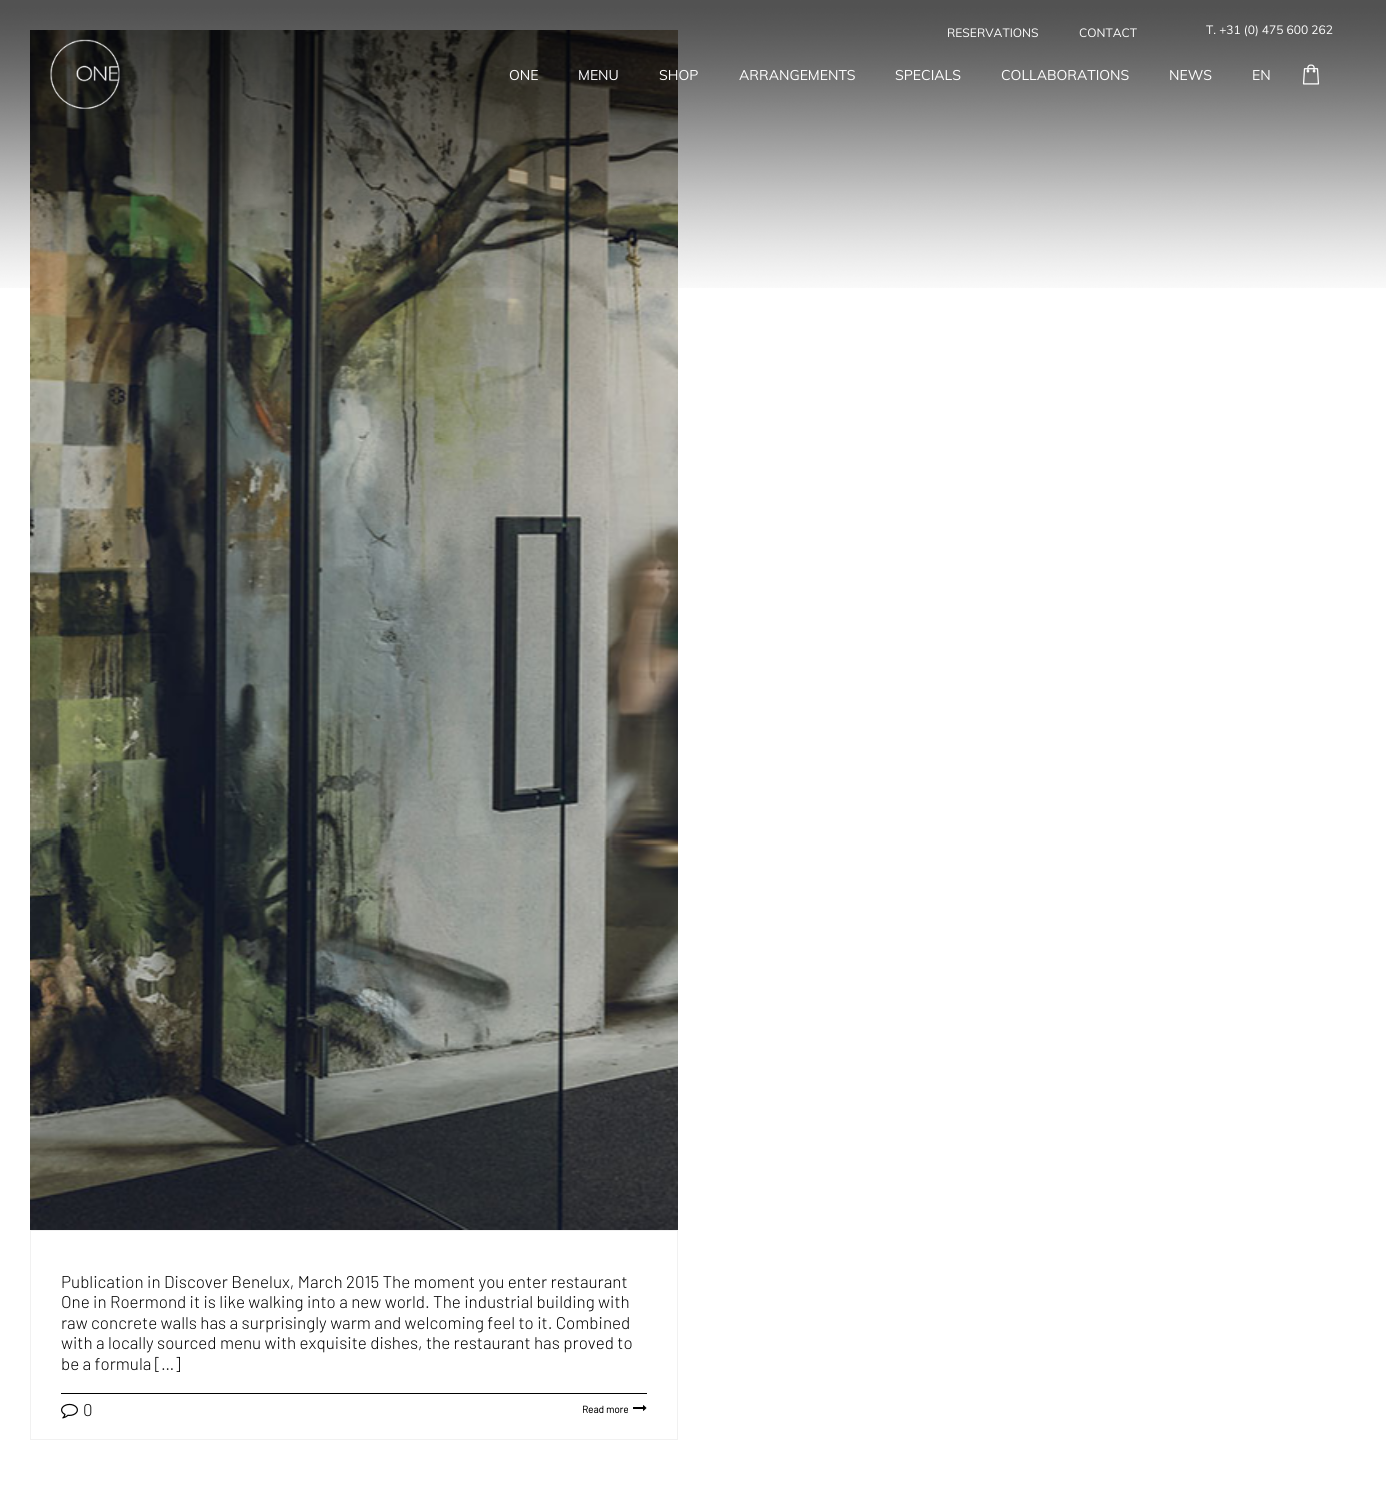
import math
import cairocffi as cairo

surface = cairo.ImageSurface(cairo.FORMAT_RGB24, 1386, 1510)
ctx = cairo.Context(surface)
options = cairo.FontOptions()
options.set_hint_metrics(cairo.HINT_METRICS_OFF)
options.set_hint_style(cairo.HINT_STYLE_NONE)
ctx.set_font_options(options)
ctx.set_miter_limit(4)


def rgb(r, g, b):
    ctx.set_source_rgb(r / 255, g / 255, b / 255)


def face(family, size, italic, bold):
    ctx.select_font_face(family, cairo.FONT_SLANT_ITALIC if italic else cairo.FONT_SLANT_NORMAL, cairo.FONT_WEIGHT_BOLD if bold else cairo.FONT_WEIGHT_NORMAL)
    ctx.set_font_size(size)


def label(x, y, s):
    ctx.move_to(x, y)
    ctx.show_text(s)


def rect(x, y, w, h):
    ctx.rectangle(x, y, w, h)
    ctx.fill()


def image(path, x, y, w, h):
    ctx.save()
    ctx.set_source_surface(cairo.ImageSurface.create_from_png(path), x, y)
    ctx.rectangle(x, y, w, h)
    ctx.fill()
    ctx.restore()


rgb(255, 255, 255)
ctx.paint()
image('image3.png', 30, 30, 648, 1200)
image('image0.png', 0, 0, 1386, 288)
face('Muli', 12, 0, 0)
rgb(255, 255, 255)
label(947, 37, 'RESERVATIONS')
label(1079, 37, 'CONTACT')
label(1206, 34, 'T. +31 (0) 475 600 262')
image('image1.png', 50, 39, 70, 70)
face('Muli', 14, 0, 0)
label(509, 80, 'ONE')
label(578, 80, 'MENU')
label(659, 80, 'SHOP')
label(739, 80, 'ARRANGEMENTS')
label(895, 80, 'SPECIALS')
label(1001, 80, 'COLLABORATIONS')
label(1169, 80, 'NEWS')
label(1252, 80, 'EN')
image('image2.png', 1302, 64, 18, 21)
ctx.rectangle(30.5, 1230.5, 647, 209)
rgb(241, 241, 241)
ctx.set_line_width(1)
ctx.stroke()
rgb(0, 0, 0)
rect(61, 1393, 586, 1)
face('Barlow Light', 17, 0, 0)
label(61, 1288, 'Publication in Discover Benelux, March 2015 The moment you enter restaurant')
label(61, 1308, 'One in Roermond it is like walking into a new world. The industrial building with')
label(61, 1329, 'raw concrete walls has a surprisingly warm and welcoming feel to it. Combined')
label(61, 1349, 'with a locally sourced menu with exquisite dishes, the restaurant has proved to')
label(61, 1370, 'be a formula […]')
image('image4.png', 61, 1403, 17, 16)
label(83, 1416, '0')
face('Barlow', 10, 0, 1)
label(582, 1413, 'Read more')
image('image5.png', 633, 1405, 14, 6)
surface.write_to_png('render.png')
